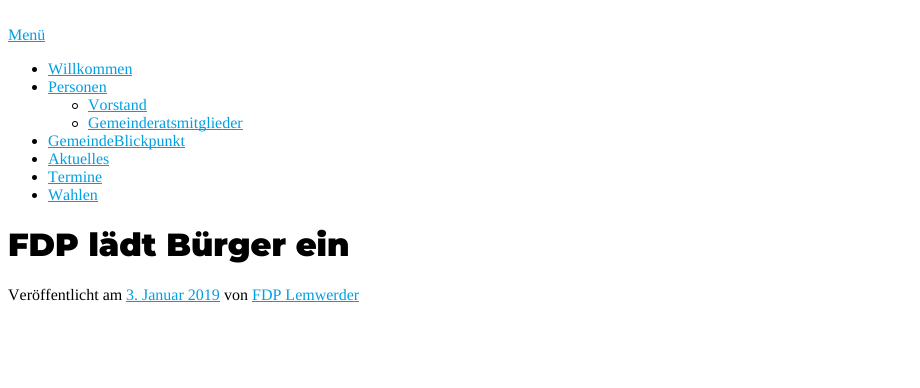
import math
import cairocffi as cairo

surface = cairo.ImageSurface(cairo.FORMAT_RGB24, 920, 388)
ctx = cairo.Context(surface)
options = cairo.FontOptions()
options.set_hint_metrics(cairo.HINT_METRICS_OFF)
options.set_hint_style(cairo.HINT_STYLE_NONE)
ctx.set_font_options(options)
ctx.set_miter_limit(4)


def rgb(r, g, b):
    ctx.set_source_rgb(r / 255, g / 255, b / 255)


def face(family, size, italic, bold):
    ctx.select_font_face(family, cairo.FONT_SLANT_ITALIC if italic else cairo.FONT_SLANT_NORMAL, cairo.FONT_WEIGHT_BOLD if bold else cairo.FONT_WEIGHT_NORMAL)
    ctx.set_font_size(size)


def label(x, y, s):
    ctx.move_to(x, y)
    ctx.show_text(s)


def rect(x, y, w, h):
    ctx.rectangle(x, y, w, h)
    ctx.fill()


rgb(255, 255, 255)
ctx.paint()
face('Liberation Serif', 16, 0, 0)
rgb(0, 158, 227)
label(8, 40, 'Menü')
rect(8, 41, 37, 1)
rgb(0, 0, 0)
ctx.new_path()
ctx.arc(34.5, 69.5, 2.5, 0, 2 * math.pi)
ctx.fill()
rgb(0, 158, 227)
label(48, 74, 'Willkommen')
rect(48, 75, 84, 1)
rgb(0, 0, 0)
ctx.new_path()
ctx.arc(34.5, 87.5, 2.5, 0, 2 * math.pi)
ctx.fill()
rgb(0, 158, 227)
label(48, 92, 'Personen')
rect(48, 93, 59, 1)
ctx.new_path()
ctx.arc(75, 106, 2.5, 0, 2 * math.pi)
rgb(0, 0, 0)
ctx.set_line_width(1)
ctx.stroke()
rgb(0, 158, 227)
label(88, 110, 'Vorstand')
rect(88, 111, 59, 1)
ctx.new_path()
ctx.arc(75, 124, 2.5, 0, 2 * math.pi)
rgb(0, 0, 0)
ctx.stroke()
rgb(0, 158, 227)
rect(88, 129, 155, 1)
label(88, 128, 'Gemeinderatsmitglieder')
rgb(0, 0, 0)
ctx.new_path()
ctx.arc(34.5, 141.5, 2.5, 0, 2 * math.pi)
ctx.fill()
rgb(0, 158, 227)
rect(48, 147, 137, 1)
label(48, 146, 'GemeindeBlickpunkt')
rgb(0, 0, 0)
ctx.new_path()
ctx.arc(34.5, 159.5, 2.5, 0, 2 * math.pi)
ctx.fill()
rgb(0, 158, 227)
label(48, 164, 'Aktuelles')
rect(48, 165, 61, 1)
rgb(0, 0, 0)
ctx.new_path()
ctx.arc(34.5, 177.5, 2.5, 0, 2 * math.pi)
ctx.fill()
rgb(0, 158, 227)
label(48, 182, 'Termine')
rect(48, 183, 54, 1)
rgb(0, 0, 0)
ctx.new_path()
ctx.arc(34.5, 195.5, 2.5, 0, 2 * math.pi)
ctx.fill()
rgb(0, 158, 227)
label(48, 200, 'Wahlen')
rect(48, 201, 50, 1)
face('Montserrat Black', 32, 0, 0)
rgb(0, 0, 0)
label(8, 256, 'FDP lädt Bürger ein')
face('Liberation Serif', 16, 0, 0)
label(8, 300, 'Veröffentlicht am')
rgb(0, 158, 227)
label(126, 300, '3. Januar 2019')
rect(126, 301, 94, 1)
rgb(0, 0, 0)
label(224, 300, 'von')
rgb(0, 158, 227)
rect(252, 301, 107, 1)
label(252, 300, 'FDP Lemwerder')
surface.write_to_png('render.png')
